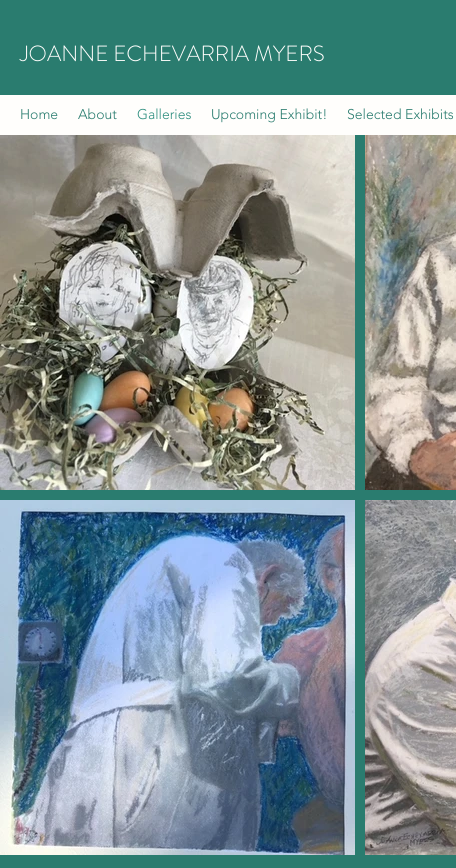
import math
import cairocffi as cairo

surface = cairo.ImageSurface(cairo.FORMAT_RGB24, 456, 868)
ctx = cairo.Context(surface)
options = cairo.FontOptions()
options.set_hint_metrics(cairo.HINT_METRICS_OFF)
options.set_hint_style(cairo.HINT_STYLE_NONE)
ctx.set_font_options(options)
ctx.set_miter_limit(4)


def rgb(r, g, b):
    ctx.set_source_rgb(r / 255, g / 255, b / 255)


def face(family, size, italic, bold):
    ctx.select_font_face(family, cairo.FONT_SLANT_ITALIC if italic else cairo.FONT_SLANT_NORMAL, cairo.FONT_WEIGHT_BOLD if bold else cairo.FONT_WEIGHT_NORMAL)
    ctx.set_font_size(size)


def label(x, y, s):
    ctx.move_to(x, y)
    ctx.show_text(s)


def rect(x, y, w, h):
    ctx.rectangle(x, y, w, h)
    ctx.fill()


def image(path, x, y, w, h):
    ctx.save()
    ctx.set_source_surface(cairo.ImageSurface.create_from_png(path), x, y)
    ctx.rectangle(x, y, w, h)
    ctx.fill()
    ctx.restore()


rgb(42, 124, 111)
ctx.paint()
face('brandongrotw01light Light', 22, 0, 0)
rgb(255, 254, 252)
label(20, 61, 'JOANNE ECHEVARRIA MYERS')
rect(0, 95, 456, 40)
face('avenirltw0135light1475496 Light', 14, 0, 0)
rgb(42, 124, 111)
label(20, 119, 'Home')
label(78, 119, 'About')
rgb(44, 141, 126)
label(137, 119, 'Galleries')
rgb(42, 124, 111)
label(211, 119, 'Upcoming Exhibit!')
label(347, 119, 'Selected Exhibits')
image('image0.png', 0, 135, 355, 355)
image('image1.png', 365, 135, 91, 355)
image('image2.png', 0, 500, 355, 355)
image('image3.png', 365, 500, 91, 355)
surface.write_to_png('render.png')
